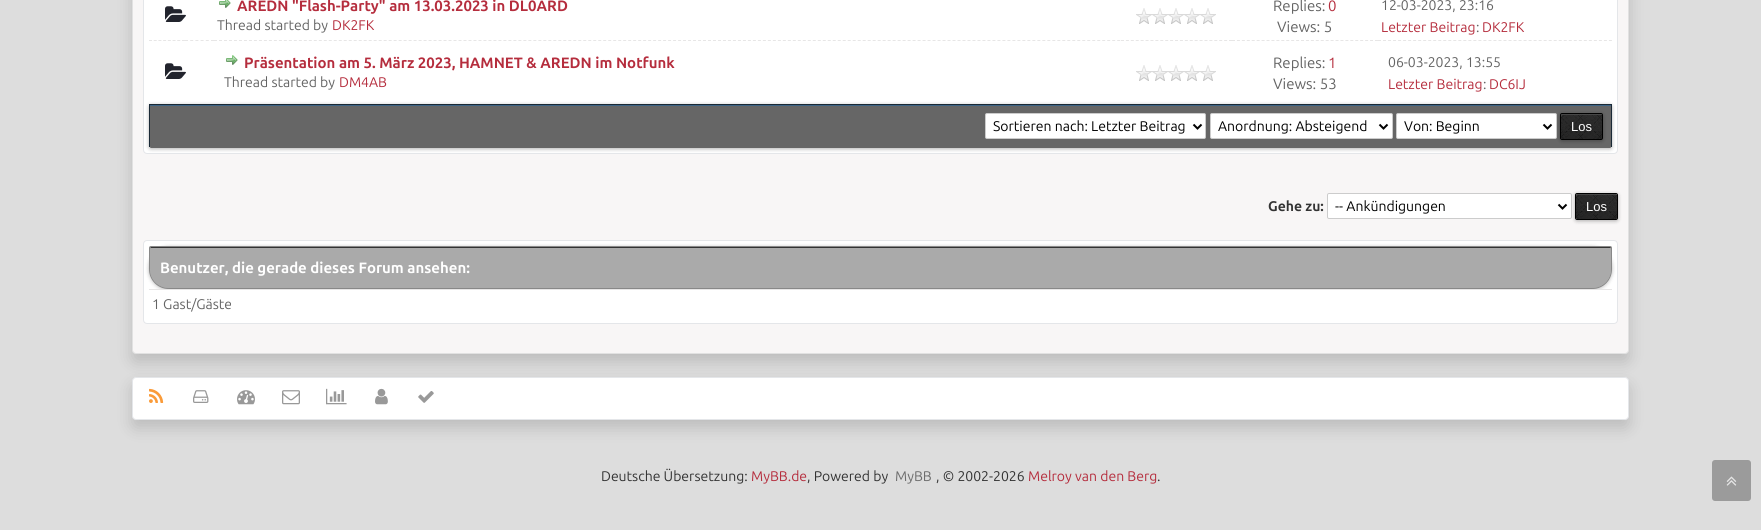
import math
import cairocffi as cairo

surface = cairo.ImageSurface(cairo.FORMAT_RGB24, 1761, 530)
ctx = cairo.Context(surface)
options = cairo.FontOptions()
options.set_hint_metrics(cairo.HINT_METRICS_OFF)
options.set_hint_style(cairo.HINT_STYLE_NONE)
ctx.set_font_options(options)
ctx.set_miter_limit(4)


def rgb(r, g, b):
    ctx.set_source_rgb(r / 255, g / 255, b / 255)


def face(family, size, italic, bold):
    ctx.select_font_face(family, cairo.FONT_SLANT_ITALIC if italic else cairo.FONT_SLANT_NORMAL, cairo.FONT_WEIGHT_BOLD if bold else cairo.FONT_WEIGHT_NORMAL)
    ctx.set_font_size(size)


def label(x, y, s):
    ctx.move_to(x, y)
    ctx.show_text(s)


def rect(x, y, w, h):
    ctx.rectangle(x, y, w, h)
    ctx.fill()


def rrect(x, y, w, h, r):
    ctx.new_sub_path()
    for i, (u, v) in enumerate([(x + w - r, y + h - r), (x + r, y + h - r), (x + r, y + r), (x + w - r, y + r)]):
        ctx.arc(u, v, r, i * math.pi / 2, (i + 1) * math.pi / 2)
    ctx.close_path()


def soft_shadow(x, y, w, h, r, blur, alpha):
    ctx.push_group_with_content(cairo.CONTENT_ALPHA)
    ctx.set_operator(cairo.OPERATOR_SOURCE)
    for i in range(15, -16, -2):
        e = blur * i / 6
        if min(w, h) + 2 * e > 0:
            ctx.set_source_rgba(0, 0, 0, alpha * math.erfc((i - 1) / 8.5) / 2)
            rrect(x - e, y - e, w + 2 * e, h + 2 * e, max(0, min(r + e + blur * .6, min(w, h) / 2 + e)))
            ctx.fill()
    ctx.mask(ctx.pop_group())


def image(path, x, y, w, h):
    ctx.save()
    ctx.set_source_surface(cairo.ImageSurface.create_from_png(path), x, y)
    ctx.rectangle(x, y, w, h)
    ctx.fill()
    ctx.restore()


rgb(221, 221, 221)
ctx.paint()
rgb(0, 0, 0)
soft_shadow(132, 385, 1497, 43, 4, 8, 0.15)
rgb(255, 255, 255)
rrect(132.5, 377.5, 1496, 42, 3.5)
ctx.fill_preserve()
rgb(228, 230, 233)
ctx.set_line_width(1)
ctx.stroke()
rgb(0, 0, 0)
soft_shadow(132, -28, 1497, 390, 4, 8, 0.15)
rgb(248, 246, 246)
rrect(132.5, -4.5, 1496, 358, 3.5)
ctx.fill_preserve()
rgb(225, 225, 225)
ctx.stroke()
rgb(255, 255, 255)
rrect(143.5, -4.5, 1474, 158, 3.5)
ctx.fill_preserve()
rgb(228, 230, 233)
ctx.stroke()
image('image0.png', 165, 6, 21, 16)
image('image1.png', 219, 0, 12, 8)
face('Ubuntu', 15, 0, 1)
rgb(181, 45, 61)
label(237, 11, 'AREDN "Flash-Party" am 13.03.2023 in DL0ARD')
face('Ubuntu', 14, 0, 0)
rgb(100, 100, 100)
label(217, 30, 'Thread started by')
rgb(181, 45, 61)
label(332, 30, 'DK2FK')
image('image2.png', 1136, 8, 80, 16)
face('Ubuntu', 15, 0, 0)
rgb(100, 100, 100)
label(1273, 11, 'Replies:')
rgb(181, 45, 61)
label(1328, 11, '0')
rgb(100, 100, 100)
label(1277, 32, 'Views: 5')
face('Ubuntu', 14, 0, 0)
label(1381, 10, '12-03-2023, 23:16')
rgb(181, 45, 61)
label(1381, 32, 'Letzter Beitrag')
rgb(100, 100, 100)
label(1476, 32, ':')
rgb(181, 45, 61)
label(1482, 32, 'DK2FK')
ctx.new_path()
ctx.move_to(149, 40.5)
ctx.line_to(185, 40.5)
rgb(231, 230, 230)
ctx.set_dash([3, 1.71])
ctx.stroke()
image('image0.png', 165, 63, 21, 16)
ctx.new_path()
ctx.move_to(185, 40.5)
ctx.line_to(214, 40.5)
ctx.set_dash([3, 2.2])
ctx.stroke()
ctx.new_path()
ctx.move_to(214, 40.5)
ctx.line_to(1121, 40.5)
ctx.set_dash([3, 1.99])
ctx.stroke()
image('image3.png', 226, 55, 12, 10)
face('Ubuntu', 15, 0, 1)
rgb(181, 45, 61)
label(244, 68, 'Präsentation am 5. März 2023, HAMNET & AREDN im Notfunk')
face('Ubuntu', 14, 0, 0)
rgb(100, 100, 100)
label(224, 87, 'Thread started by')
rgb(181, 45, 61)
label(339, 87, 'DM4AB')
ctx.new_path()
ctx.move_to(1121, 40.5)
ctx.line_to(1232, 40.5)
rgb(231, 230, 230)
ctx.set_dash([3, 1.91])
ctx.stroke()
image('image2.png', 1136, 65, 80, 16)
ctx.new_path()
ctx.move_to(1232, 40.5)
ctx.line_to(1378, 40.5)
ctx.set_dash([3, 1.93])
ctx.stroke()
face('Ubuntu', 15, 0, 0)
rgb(100, 100, 100)
label(1273, 68, 'Replies:')
rgb(181, 45, 61)
label(1328, 68, '1')
rgb(100, 100, 100)
label(1273, 89, 'Views: 53')
ctx.new_path()
ctx.move_to(1378, 40.5)
ctx.line_to(1612, 40.5)
rgb(231, 230, 230)
ctx.set_dash([3, 2.02])
ctx.stroke()
face('Ubuntu', 14, 0, 0)
rgb(100, 100, 100)
label(1388, 67, '06-03-2023, 13:55')
rgb(181, 45, 61)
label(1388, 89, 'Letzter Beitrag')
rgb(100, 100, 100)
label(1483, 89, ':')
rgb(181, 45, 61)
label(1489, 89, 'DC6IJ')
rgb(0, 0, 0)
soft_shadow(149, 105, 1463, 44, 2, 2, 0.3)
rgb(102, 102, 102)
ctx.new_path()
ctx.move_to(150, 105)
ctx.line_to(1611, 105)
ctx.line_to(1611, 146)
ctx.curve_to(1611, 147, 1611, 148, 1610, 148)
ctx.line_to(151, 148)
ctx.curve_to(150, 148, 150, 147, 150, 146)
ctx.close_path()
ctx.fill()
rgb(61, 100, 133)
rect(150, 105, 1461, 1)
rgb(26, 41, 54)
rect(149, 104, 1463, 1)
rect(1611, 104, 1, 43)
rect(149, 104, 1, 43)
rgb(255, 255, 255)
rrect(985.5, 113.5, 220, 25, 1.5)
ctx.fill_preserve()
rgb(204, 204, 204)
ctx.set_dash([])
ctx.stroke()
ctx.new_path()
ctx.move_to(1193.5, 124.5)
ctx.line_to(1197.5, 128.5)
ctx.line_to(1201.5, 124.5)
rgb(0, 0, 0)
ctx.set_line_width(2)
ctx.stroke()
label(993, 131, 'Sortieren nach: Letzter Beitrag')
rgb(255, 255, 255)
rrect(1210.5, 113.5, 182, 25, 1.5)
ctx.fill_preserve()
rgb(204, 204, 204)
ctx.set_line_width(1)
ctx.stroke()
ctx.new_path()
ctx.move_to(1379.5, 124.5)
ctx.line_to(1383.5, 128.5)
ctx.line_to(1387.5, 124.5)
rgb(0, 0, 0)
ctx.set_line_width(2)
ctx.stroke()
label(1218, 131, 'Anordnung: Absteigend')
rgb(255, 255, 255)
rrect(1396.5, 113.5, 160, 25, 1.5)
ctx.fill_preserve()
rgb(204, 204, 204)
ctx.set_line_width(1)
ctx.stroke()
ctx.new_path()
ctx.move_to(1543.5, 124.5)
ctx.line_to(1547.5, 128.5)
ctx.line_to(1551.5, 124.5)
rgb(0, 0, 0)
ctx.set_line_width(2)
ctx.stroke()
label(1404, 131, 'Von: Beginn')
rgb(0, 0, 0)
soft_shadow(1560, 114, 43, 27, 2, 2, 0.3)
image('image4.png', 1561, 114, 41, 25)
ctx.set_source_rgba(1, 1, 1, 0.13)
ctx.set_fill_rule(cairo.FILL_RULE_EVEN_ODD)
ctx.new_path()
ctx.move_to(1562, 115)
ctx.line_to(1602, 115)
ctx.curve_to(1602, 114, 1602, 114, 1601, 114)
ctx.line_to(1562, 114)
ctx.curve_to(1561, 114, 1561, 114, 1561, 115)
ctx.line_to(1561, 117)
ctx.close_path()
ctx.move_to(1561, 138)
ctx.line_to(1561, 135)
ctx.close_path()
ctx.fill()
rrect(1560.5, 113.5, 42, 26, 1.5)
rgb(0, 0, 0)
ctx.set_line_width(1)
ctx.stroke()
face('Liberation Sans', 13, 0, 0)
rgb(255, 255, 255)
label(1571, 131, 'Los')
face('Ubuntu', 14, 0, 1)
rgb(51, 51, 51)
label(1268, 211, 'Gehe zu:')
rgb(255, 255, 255)
rrect(1327.5, 193.5, 244, 25, 1.5)
ctx.fill_preserve()
rgb(204, 204, 204)
ctx.stroke()
ctx.new_path()
ctx.move_to(1558.5, 204.5)
ctx.line_to(1562.5, 208.5)
ctx.line_to(1566.5, 204.5)
rgb(0, 0, 0)
ctx.set_line_width(2)
ctx.stroke()
face('Ubuntu', 14, 0, 0)
label(1335, 211, '-- Ankündigungen')
rgb(0, 0, 0)
soft_shadow(1575, 194, 43, 27, 2, 2, 0.3)
image('image5.png', 1576, 194, 41, 25)
ctx.set_source_rgba(1, 1, 1, 0.13)
ctx.new_path()
ctx.move_to(1577, 195)
ctx.line_to(1617, 195)
ctx.curve_to(1617, 194, 1617, 194, 1616, 194)
ctx.line_to(1577, 194)
ctx.curve_to(1576, 194, 1576, 194, 1576, 195)
ctx.line_to(1576, 197)
ctx.close_path()
ctx.move_to(1576, 218)
ctx.line_to(1576, 215)
ctx.close_path()
ctx.fill()
rrect(1575.5, 193.5, 42, 26, 1.5)
rgb(0, 0, 0)
ctx.set_line_width(1)
ctx.stroke()
face('Liberation Sans', 13, 0, 0)
rgb(255, 255, 255)
label(1586, 211, 'Los')
rrect(143.5, 240.5, 1474, 83, 3.5)
ctx.fill_preserve()
rgb(228, 230, 233)
ctx.stroke()
rgb(0, 0, 0)
soft_shadow(149, 247, 1463, 43, 20, 2, 0.3)
rgb(170, 170, 170)
ctx.new_path()
ctx.move_to(151, 247)
ctx.line_to(1610, 247)
ctx.curve_to(1610.5, 247, 1611, 247.5, 1611, 248)
ctx.line_to(1611, 269)
ctx.curve_to(1611, 279.5, 1602.5, 288, 1592, 288)
ctx.line_to(169, 288)
ctx.curve_to(158.5, 288, 150, 279.5, 150, 269)
ctx.line_to(150, 248)
ctx.curve_to(150, 247.5, 150.5, 247, 151, 247)
ctx.close_path()
ctx.fill()
rgb(51, 51, 51)
ctx.set_fill_rule(cairo.FILL_RULE_WINDING)
ctx.new_path()
ctx.move_to(151, 248)
ctx.line_to(1610, 248)
ctx.curve_to(1611, 248, 1611, 248, 1611, 249)
ctx.curve_to(1611, 248, 1611, 247, 1610, 247)
ctx.line_to(151, 247)
ctx.line_to(150, 248)
ctx.line_to(150, 249)
ctx.curve_to(150, 248, 150, 248, 151, 248)
ctx.close_path()
ctx.fill()
ctx.new_path()
ctx.move_to(151, 246.5)
ctx.line_to(1610, 246.5)
ctx.curve_to(1611, 246.5, 1611.5, 247, 1611.5, 248)
ctx.line_to(1611.5, 269)
ctx.curve_to(1611.5, 280, 1603, 288.5, 1592, 288.5)
ctx.line_to(169, 288.5)
ctx.curve_to(158, 288.5, 149.5, 280, 149.5, 269)
ctx.line_to(149.5, 248)
ctx.curve_to(149.5, 247, 150, 246.5, 151, 246.5)
ctx.close_path()
rgb(136, 136, 136)
ctx.stroke()
face('Ubuntu', 15, 0, 1)
rgb(255, 255, 255)
label(160, 273, 'Benutzer, die gerade dieses Forum ansehen:')
ctx.new_path()
ctx.move_to(149, 289)
ctx.line_to(1612, 289)
ctx.line_to(1612, 316)
ctx.curve_to(1612, 317, 1611, 318, 1610, 318)
ctx.line_to(151, 318)
ctx.curve_to(150, 318, 149, 317, 149, 316)
ctx.close_path()
ctx.fill()
rgb(231, 230, 230)
rect(149, 289, 1463, 1)
face('Ubuntu', 14, 0, 0)
rgb(100, 100, 100)
label(152, 309, '1 Gast/Gäste')
image('image6.png', 149, 388, 15, 15)
image('image7.png', 193, 390, 16, 13)
image('image8.png', 237, 390, 18, 15)
image('image9.png', 282, 390, 18, 15)
image('image10.png', 326, 388, 21, 17)
image('image11.png', 375, 388, 13, 17)
image('image12.png', 418, 391, 16, 12)
rgb(51, 51, 51)
label(601, 481, 'Deutsche Übersetzung:')
rgb(181, 45, 61)
label(751, 481, 'MyBB.de')
rgb(51, 51, 51)
label(807, 481, ', Powered by')
rgb(108, 108, 108)
label(895, 481, 'MyBB')
rgb(51, 51, 51)
label(936, 481, ', © 2002-2026')
rgb(181, 45, 61)
label(1028, 481, 'Melroy van den Berg')
rgb(51, 51, 51)
label(1157, 481, '.')
rgb(155, 155, 155)
rrect(1712, 460, 39, 41, 3)
ctx.fill()
image('image13.png', 1726, 476, 11, 10)
surface.write_to_png('render.png')
